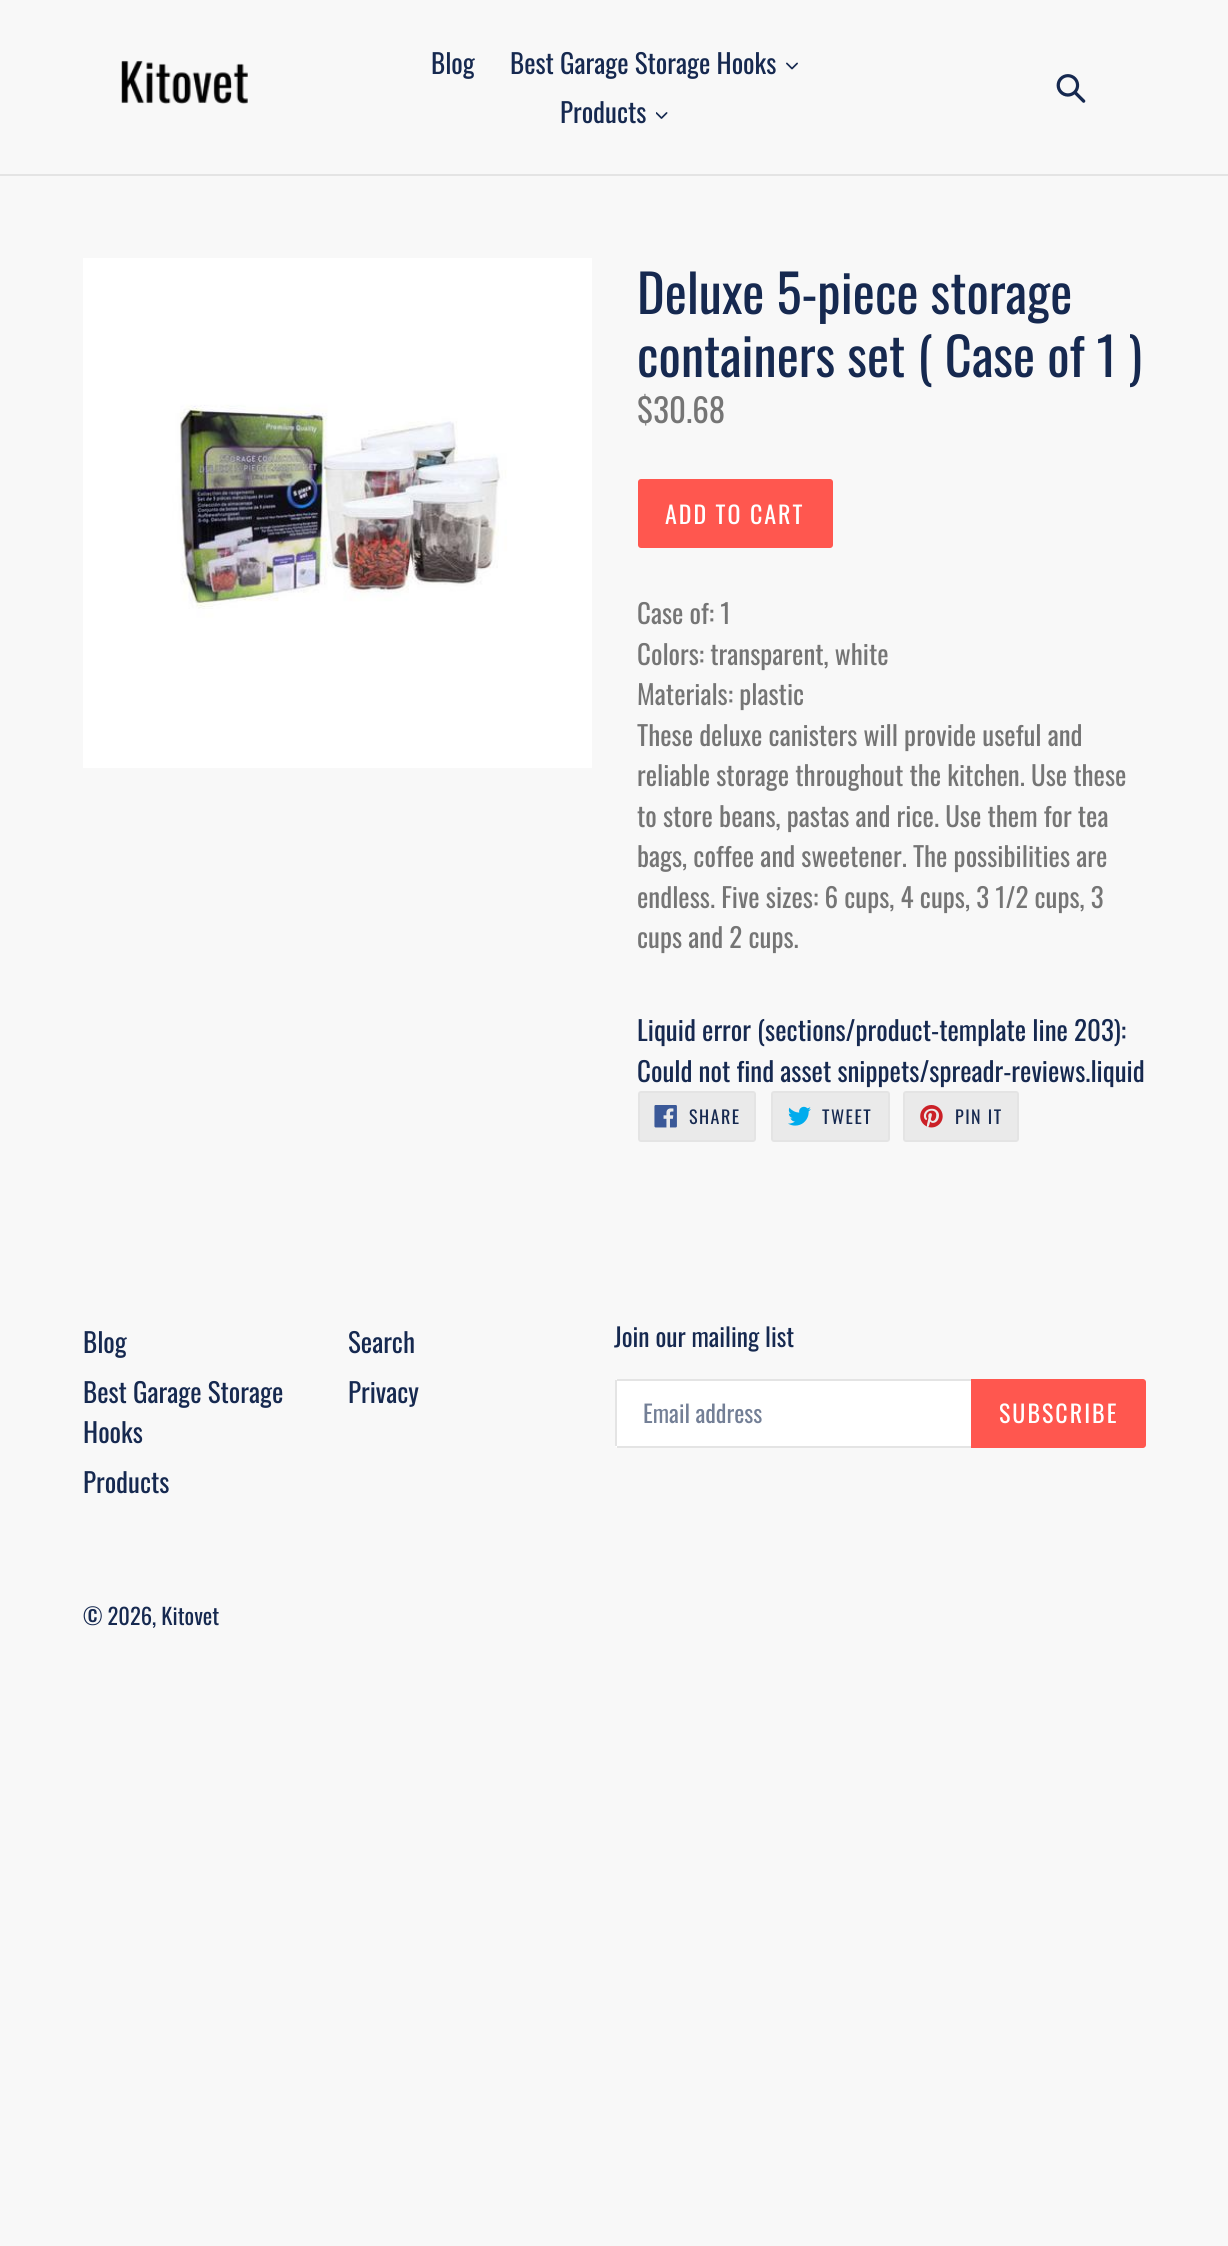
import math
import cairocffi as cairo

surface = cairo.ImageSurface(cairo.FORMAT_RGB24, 1228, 2246)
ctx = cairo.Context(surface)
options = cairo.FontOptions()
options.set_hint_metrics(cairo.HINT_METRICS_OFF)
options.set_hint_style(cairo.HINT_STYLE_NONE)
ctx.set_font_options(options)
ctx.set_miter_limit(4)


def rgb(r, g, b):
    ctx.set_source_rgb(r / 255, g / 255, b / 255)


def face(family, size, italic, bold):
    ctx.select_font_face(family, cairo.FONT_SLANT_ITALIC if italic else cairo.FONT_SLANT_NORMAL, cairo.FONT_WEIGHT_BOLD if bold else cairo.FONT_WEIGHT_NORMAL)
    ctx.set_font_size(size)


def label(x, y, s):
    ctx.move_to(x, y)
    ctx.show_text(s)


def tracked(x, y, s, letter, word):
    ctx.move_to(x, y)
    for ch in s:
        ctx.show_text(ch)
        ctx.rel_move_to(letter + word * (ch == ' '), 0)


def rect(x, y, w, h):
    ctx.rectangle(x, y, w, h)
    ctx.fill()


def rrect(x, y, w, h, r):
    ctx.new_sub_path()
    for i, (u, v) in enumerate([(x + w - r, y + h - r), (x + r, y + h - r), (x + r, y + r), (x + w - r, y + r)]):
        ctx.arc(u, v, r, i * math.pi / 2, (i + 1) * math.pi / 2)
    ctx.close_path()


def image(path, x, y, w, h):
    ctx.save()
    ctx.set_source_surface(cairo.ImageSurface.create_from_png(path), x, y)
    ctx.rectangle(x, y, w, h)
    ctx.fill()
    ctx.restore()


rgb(248, 248, 248)
ctx.paint()
rgb(228, 228, 228)
rect(0, 174, 1228, 2)
image('image0.png', 121, 60, 127, 44)
face('Oswald', 27, 0, 0)
rgb(22, 41, 80)
label(431, 74, 'Blog')
label(510, 74, 'Best Garage Storage Hooks')
image('image1.png', 786, 62, 12, 8)
label(560, 123, 'Products')
image('image2.png', 656, 112, 12, 7)
image('image3.png', 1056, 74, 30, 29)
image('image4.png', 83, 258, 509, 510)
face('Oswald', 52.5, 0, 0)
label(637, 314, 'Deluxe 5-piece storage')
label(637, 377, 'containers set ( Case of 1 )')
face('Oswald', 33, 0, 0)
rgb(117, 117, 117)
label(637, 423, '$30.68')
rgb(255, 87, 79)
rrect(638, 479, 195, 69, 3)
ctx.fill()
face('Oswald', 24, 0, 0)
rgb(255, 255, 255)
tracked(665, 524, 'ADD TO CART', 2, 0)
face('Oswald', 27, 0, 0)
rgb(117, 117, 117)
label(637, 624, 'Case of: 1')
label(637, 665, 'Colors: transparent, white')
label(637, 705, 'Materials: plastic')
label(637, 746, 'These deluxe canisters will provide useful and')
label(637, 786, 'reliable storage throughout the kitchen. Use these')
label(637, 827, 'to store beans, pastas and rice. Use them for tea')
label(637, 867, 'bags, coffee and sweetener. The possibilities are')
label(637, 908, 'endless. Five sizes: 6 cups, 4 cups, 3 1/2 cups, 3')
label(637, 948, 'cups and 2 cups.')
rgb(22, 41, 80)
label(637, 1041, 'Liquid error (sections/product-template line 203):')
label(637, 1082, 'Could not find asset snippets/spreadr-reviews.liquid')
rgb(234, 234, 234)
rrect(639, 1092, 116, 49, 2)
ctx.fill_preserve()
rgb(228, 228, 228)
ctx.stroke()
image('image5.png', 654, 1105, 23, 23)
face('Oswald', 18, 0, 0)
rgb(22, 41, 80)
tracked(689, 1124, 'SHARE', 1.5, 0)
rgb(234, 234, 234)
rrect(772, 1092, 117, 49, 2)
ctx.fill_preserve()
rgb(228, 228, 228)
ctx.stroke()
image('image6.png', 788, 1106, 23, 20)
rgb(22, 41, 80)
tracked(822, 1124, 'TWEET', 1.5, 0)
rgb(234, 234, 234)
rrect(904, 1092, 114, 49, 2)
ctx.fill_preserve()
rgb(228, 228, 228)
ctx.stroke()
image('image7.png', 920, 1105, 23, 23)
rgb(22, 41, 80)
tracked(955, 1124, 'PIN IT', 1.5, 0)
face('Oswald', 27, 0, 0)
label(83, 1353, 'Blog')
label(83, 1403, 'Best Garage Storage')
label(83, 1443, 'Hooks')
label(83, 1493, 'Products')
label(348, 1353, 'Search')
label(348, 1403, 'Privacy')
face('Oswald', 25.5, 0, 0)
label(614, 1347, 'Join our mailing list')
rgb(255, 255, 255)
ctx.new_path()
ctx.move_to(618, 1379)
ctx.line_to(971, 1379)
ctx.line_to(971, 1448)
ctx.line_to(618, 1448)
ctx.curve_to(616.5, 1448, 615, 1446.5, 615, 1445)
ctx.line_to(615, 1382)
ctx.curve_to(615, 1380.5, 616.5, 1379, 618, 1379)
ctx.close_path()
ctx.fill()
rgb(228, 228, 228)
rect(617, 1379, 354, 2)
rect(617, 1446, 354, 2)
rect(615, 1380, 2, 66)
face('Oswald', 24, 0, 0)
rgb(115, 127, 150)
label(643, 1423, 'Email address')
rgb(255, 87, 79)
ctx.new_path()
ctx.move_to(971, 1379)
ctx.line_to(1143, 1379)
ctx.curve_to(1144.5, 1379, 1146, 1380.5, 1146, 1382)
ctx.line_to(1146, 1445)
ctx.curve_to(1146, 1446.5, 1144.5, 1448, 1143, 1448)
ctx.line_to(971, 1448)
ctx.close_path()
ctx.fill()
rgb(255, 255, 255)
tracked(999, 1423, 'SUBSCRIBE', 2, 0)
face('Oswald', 22.5, 0, 0)
rgb(22, 41, 80)
label(83, 1625, '© 2026, Kitovet')
surface.write_to_png('render.png')
